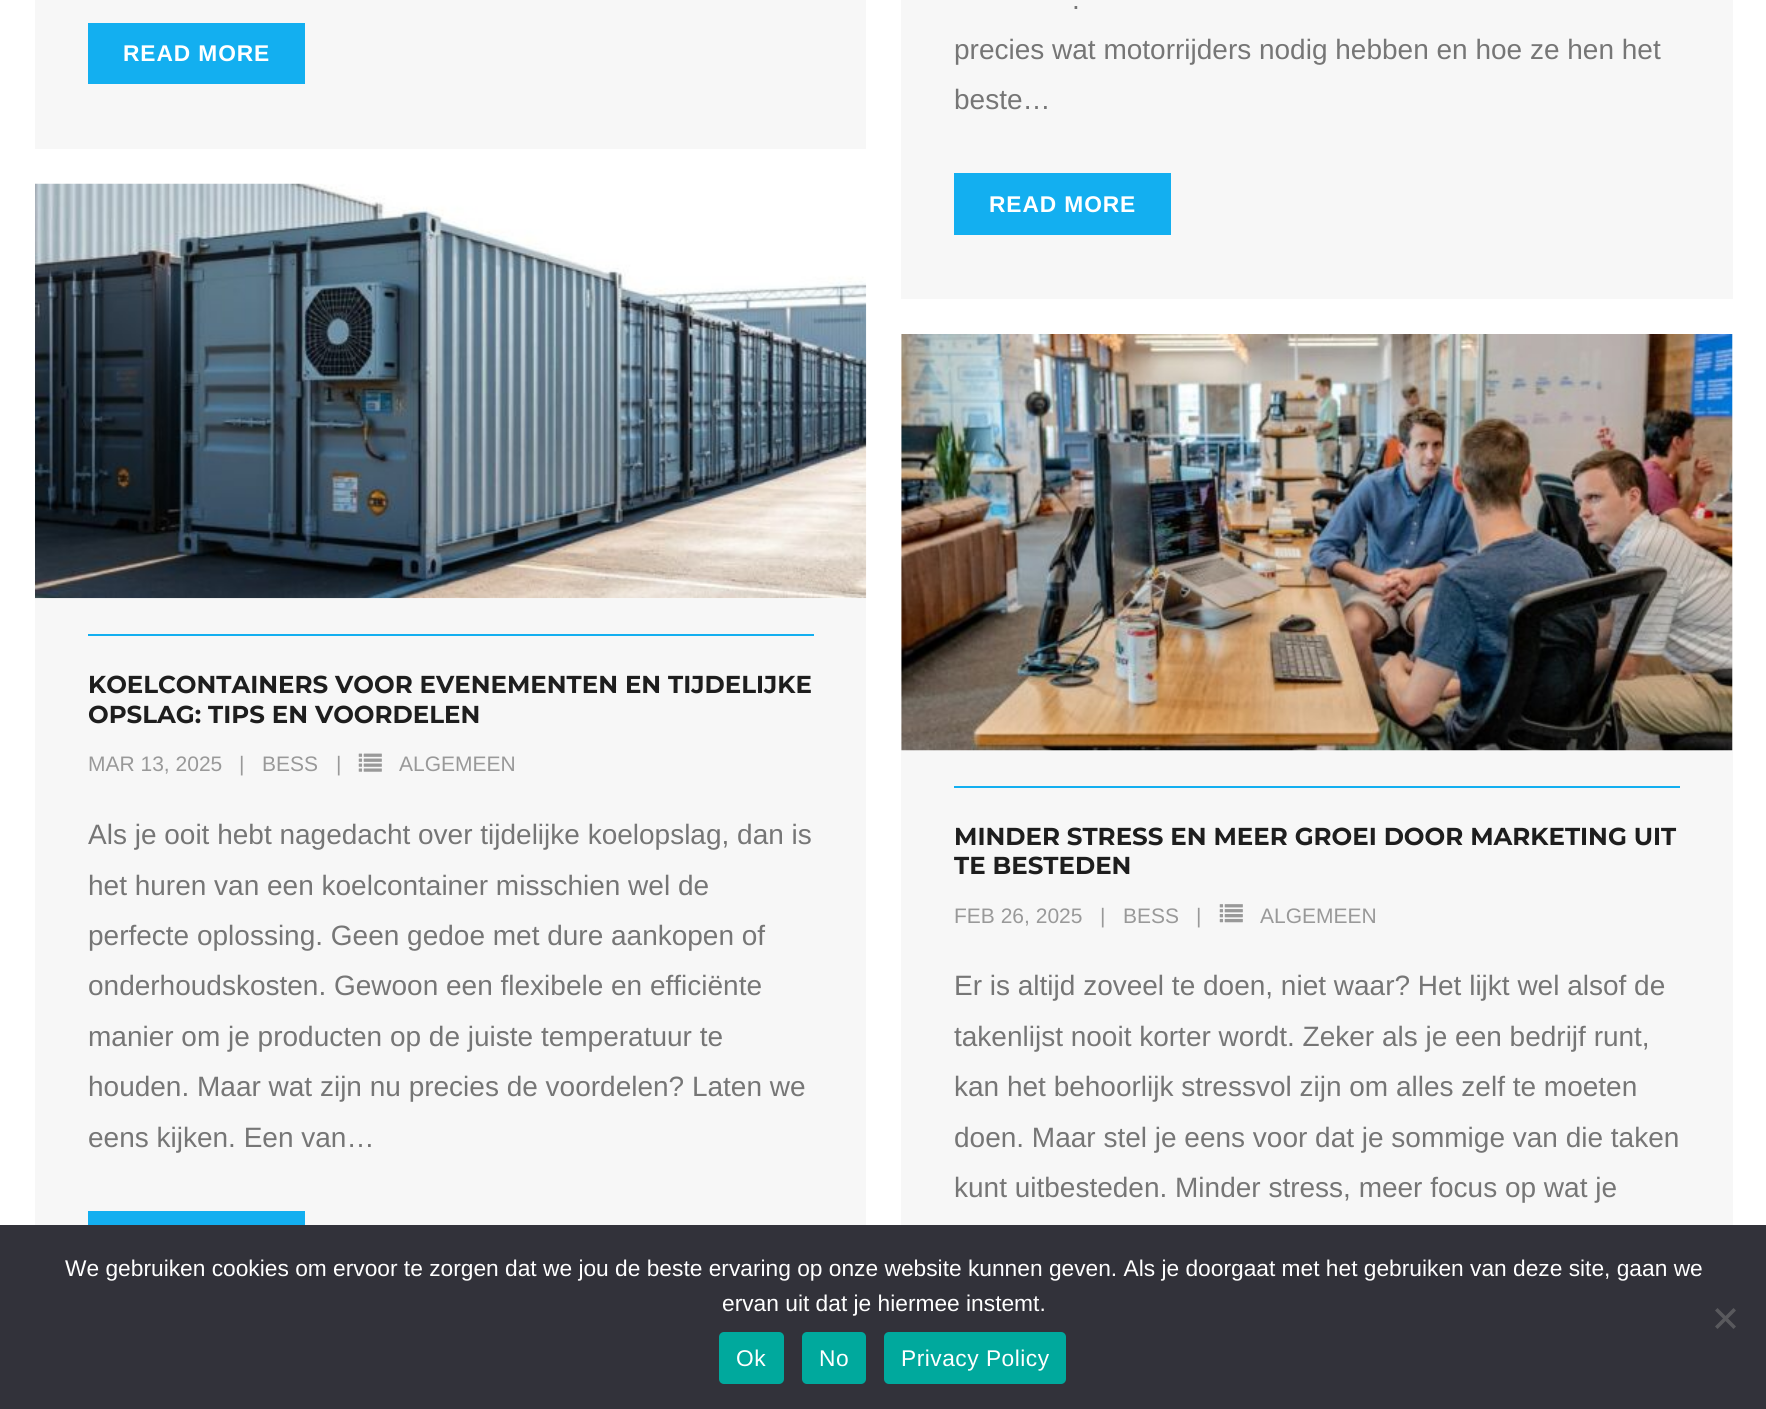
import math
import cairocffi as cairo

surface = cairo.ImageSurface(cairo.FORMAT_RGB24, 1766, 1409)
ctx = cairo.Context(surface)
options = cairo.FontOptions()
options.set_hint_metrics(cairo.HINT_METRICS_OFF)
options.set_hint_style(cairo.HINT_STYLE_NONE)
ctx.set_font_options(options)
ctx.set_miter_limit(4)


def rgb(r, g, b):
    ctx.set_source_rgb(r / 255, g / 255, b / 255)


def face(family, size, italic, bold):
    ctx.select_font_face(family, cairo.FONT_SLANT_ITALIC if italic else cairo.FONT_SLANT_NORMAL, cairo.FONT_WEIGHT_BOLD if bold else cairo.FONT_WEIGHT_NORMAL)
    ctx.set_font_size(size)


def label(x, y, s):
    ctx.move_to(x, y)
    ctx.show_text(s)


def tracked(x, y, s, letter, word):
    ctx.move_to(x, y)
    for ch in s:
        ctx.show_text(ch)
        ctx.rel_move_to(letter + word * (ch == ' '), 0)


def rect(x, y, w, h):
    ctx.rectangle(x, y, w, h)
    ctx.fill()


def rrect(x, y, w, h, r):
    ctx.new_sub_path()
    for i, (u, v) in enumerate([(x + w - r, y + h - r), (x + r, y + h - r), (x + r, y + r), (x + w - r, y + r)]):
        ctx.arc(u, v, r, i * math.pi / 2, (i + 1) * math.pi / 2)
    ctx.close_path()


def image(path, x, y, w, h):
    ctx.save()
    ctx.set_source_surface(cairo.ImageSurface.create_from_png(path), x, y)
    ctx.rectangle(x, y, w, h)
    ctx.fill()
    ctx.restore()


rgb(255, 255, 255)
ctx.paint()
rgb(247, 247, 247)
rect(35, 0, 831, 149)
rgb(19, 175, 240)
rect(88, 23, 217, 61)
face('Liberation Sans', 22.75, 0, 1)
rgb(255, 255, 255)
tracked(123, 61, 'READ MORE', 0.9, 0)
rgb(247, 247, 247)
rect(901, 0, 832, 299)
face('Liberation Sans', 28, 0, 0)
rgb(118, 118, 118)
label(1072, 9, '.')
label(954, 59, 'precies wat motorrijders nodig hebben en hoe ze hen het')
label(954, 109, 'beste…')
rgb(19, 175, 240)
rect(954, 173, 217, 62)
face('Liberation Sans', 22.75, 0, 1)
rgb(255, 255, 255)
tracked(989, 212, 'READ MORE', 0.9, 0)
rgb(247, 247, 247)
rect(35, 598, 831, 627)
image('image0.png', 35, 183, 832, 416)
rgb(19, 175, 240)
rect(88, 634, 726, 2)
face('Montserrat', 24.5, 0, 1)
rgb(30, 30, 30)
label(88, 693, 'KOELCONTAINERS VOOR EVENEMENTEN EN TIJDELIJKE')
label(88, 723, 'OPSLAG: TIPS EN VOORDELEN')
face('Liberation Sans', 21, 0, 0)
rgb(153, 153, 153)
label(88, 771, 'MAR 13, 2025')
label(239, 771, '|')
label(262, 771, 'BESS')
label(336, 771, '|')
image('image1.png', 358, 753, 24, 19)
label(399, 771, 'ALGEMEEN')
face('Liberation Sans', 28, 0, 0)
rgb(118, 118, 118)
label(88, 844, 'Als je ooit hebt nagedacht over tijdelijke koelopslag, dan is')
label(88, 895, 'het huren van een koelcontainer misschien wel de')
label(88, 945, 'perfecte oplossing. Geen gedoe met dure aankopen of')
label(88, 995, 'onderhoudskosten. Gewoon een flexibele en efficiënte')
label(88, 1046, 'manier om je producten op de juiste temperatuur te')
label(88, 1096, 'houden. Maar wat zijn nu precies de voordelen? Laten we')
label(88, 1147, 'eens kijken. Een van…')
rgb(19, 175, 240)
rect(88, 1211, 217, 14)
rgb(247, 247, 247)
rect(901, 334, 832, 891)
image('image2.png', 901, 334, 832, 417)
rgb(19, 175, 240)
rect(954, 786, 726, 2)
face('Montserrat', 24.5, 0, 1)
rgb(30, 30, 30)
label(954, 845, 'MINDER STRESS EN MEER GROEI DOOR MARKETING UIT')
label(954, 874, 'TE BESTEDEN')
face('Liberation Sans', 21, 0, 0)
rgb(153, 153, 153)
label(954, 923, 'FEB 26, 2025')
label(1100, 923, '|')
label(1123, 923, 'BESS')
label(1196, 923, '|')
image('image3.png', 1219, 904, 24, 19)
label(1260, 923, 'ALGEMEEN')
face('Liberation Sans', 28, 0, 0)
rgb(118, 118, 118)
label(954, 995, 'Er is altijd zoveel te doen, niet waar? Het lijkt wel alsof de')
label(954, 1046, 'takenlijst nooit korter wordt. Zeker als je een bedrijf runt,')
label(954, 1096, 'kan het behoorlijk stressvol zijn om alles zelf te moeten')
label(954, 1147, 'doen. Maar stel je eens voor dat je sommige van die taken')
label(954, 1197, 'kunt uitbesteden. Minder stress, meer focus op wat je')
rgb(50, 50, 58)
rect(0, 1225, 1766, 184)
face('Liberation Sans', 22.75, 0, 0)
rgb(255, 255, 255)
label(65, 1276, 'We gebruiken cookies om ervoor te zorgen dat we jou de beste ervaring op onze website kunnen geven. Als je doorgaat met het gebruiken van deze site, gaan we')
label(722, 1311, 'ervan uit dat je hiermee instemt.')
rgb(89, 89, 93)
ctx.new_path()
ctx.move_to(1733.5, 1308)
ctx.line_to(1736, 1310.5)
ctx.line_to(1717.5, 1329)
ctx.line_to(1715, 1326.5)
ctx.close_path()
ctx.fill()
ctx.new_path()
ctx.move_to(1715, 1310.5)
ctx.line_to(1717.5, 1308)
ctx.line_to(1736, 1326.5)
ctx.line_to(1733.5, 1329)
ctx.close_path()
ctx.fill()
rgb(0, 169, 157)
rrect(719, 1332, 65, 52, 5)
ctx.fill()
rgb(255, 255, 255)
tracked(736, 1366, 'Ok', 0.5, 0)
rgb(0, 169, 157)
rrect(802, 1332, 64, 52, 5)
ctx.fill()
rgb(255, 255, 255)
tracked(819, 1366, 'No', 0.5, 0)
rgb(0, 169, 157)
rrect(884, 1332, 182, 52, 5)
ctx.fill()
rgb(255, 255, 255)
tracked(901, 1366, 'Privacy Policy', 0.5, 0)
surface.write_to_png('render.png')
